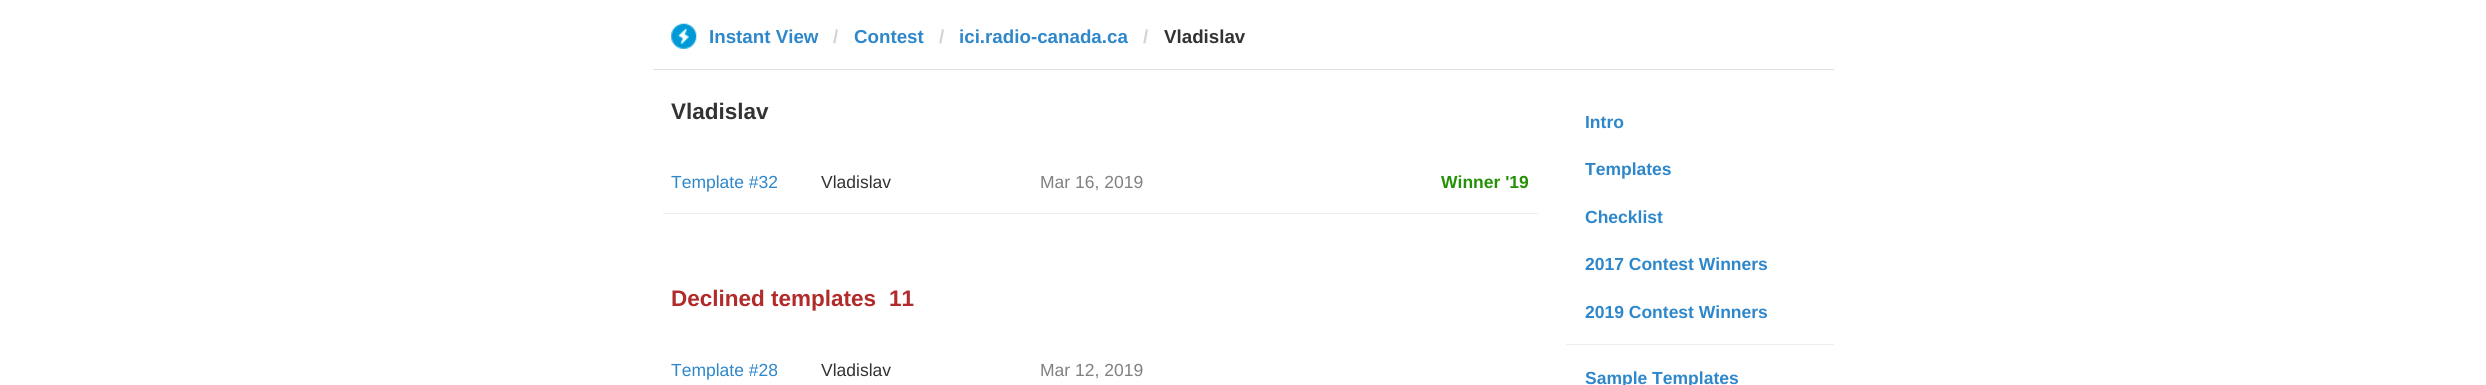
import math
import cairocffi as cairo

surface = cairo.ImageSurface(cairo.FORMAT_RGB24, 2486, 385)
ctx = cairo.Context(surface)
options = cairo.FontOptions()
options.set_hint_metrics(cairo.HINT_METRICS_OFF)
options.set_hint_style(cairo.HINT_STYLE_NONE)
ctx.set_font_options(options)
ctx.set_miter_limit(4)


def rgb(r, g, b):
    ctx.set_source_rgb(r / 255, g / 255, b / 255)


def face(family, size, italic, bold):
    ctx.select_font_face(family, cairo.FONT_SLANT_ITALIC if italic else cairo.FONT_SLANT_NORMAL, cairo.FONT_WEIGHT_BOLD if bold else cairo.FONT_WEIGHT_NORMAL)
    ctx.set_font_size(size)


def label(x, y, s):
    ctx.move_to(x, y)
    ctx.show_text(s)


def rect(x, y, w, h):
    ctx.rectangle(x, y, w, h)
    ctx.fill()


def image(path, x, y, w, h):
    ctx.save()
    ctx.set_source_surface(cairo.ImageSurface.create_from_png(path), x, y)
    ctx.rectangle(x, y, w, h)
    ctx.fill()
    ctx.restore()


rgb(255, 255, 255)
ctx.paint()
rgb(224, 224, 224)
rect(653, 69, 1181, 1)
image('image0.png', 671, 23, 26, 26)
face('Liberation Sans', 18.75, 0, 1)
rgb(46, 135, 202)
label(709, 43, 'Instant View')
rgb(212, 212, 212)
label(833, 43, '/')
rgb(46, 135, 202)
label(854, 43, 'Contest')
rgb(212, 212, 212)
label(939, 43, '/')
rgb(46, 135, 202)
label(959, 43, 'ici.radio-canada.ca')
rgb(212, 212, 212)
label(1143, 43, '/')
rgb(51, 51, 51)
label(1164, 43, 'Vladislav')
face('Liberation Sans', 22.5, 0, 1)
label(671, 119, 'Vladislav')
rgb(237, 237, 237)
rect(663, 213, 875, 1)
face('Liberation Sans', 17.5, 0, 0)
rgb(46, 135, 202)
label(671, 188, 'Template #32')
rgb(51, 51, 51)
label(821, 188, 'Vladislav')
rgb(128, 128, 128)
label(1040, 188, 'Mar 16, 2019')
face('Liberation Sans', 17.5, 0, 1)
rgb(36, 145, 6)
label(1441, 188, 'Winner \'19')
face('Liberation Sans', 22.5, 0, 1)
rgb(177, 43, 43)
label(671, 306, 'Declined templates')
label(889, 306, '11')
face('Liberation Sans', 17.5, 0, 0)
rgb(46, 135, 202)
label(671, 376, 'Template #28')
rgb(51, 51, 51)
label(821, 376, 'Vladislav')
rgb(128, 128, 128)
label(1040, 376, 'Mar 12, 2019')
face('Liberation Sans', 17.5, 0, 1)
rgb(46, 135, 202)
label(1585, 128, 'Intro')
label(1585, 175, 'Templates')
label(1585, 223, 'Checklist')
label(1585, 270, '2017 Contest Winners')
label(1585, 318, '2019 Contest Winners')
rgb(237, 237, 237)
rect(1566, 344, 268, 1)
rgb(46, 135, 202)
label(1585, 384, 'Sample Templates')
surface.write_to_png('render.png')
